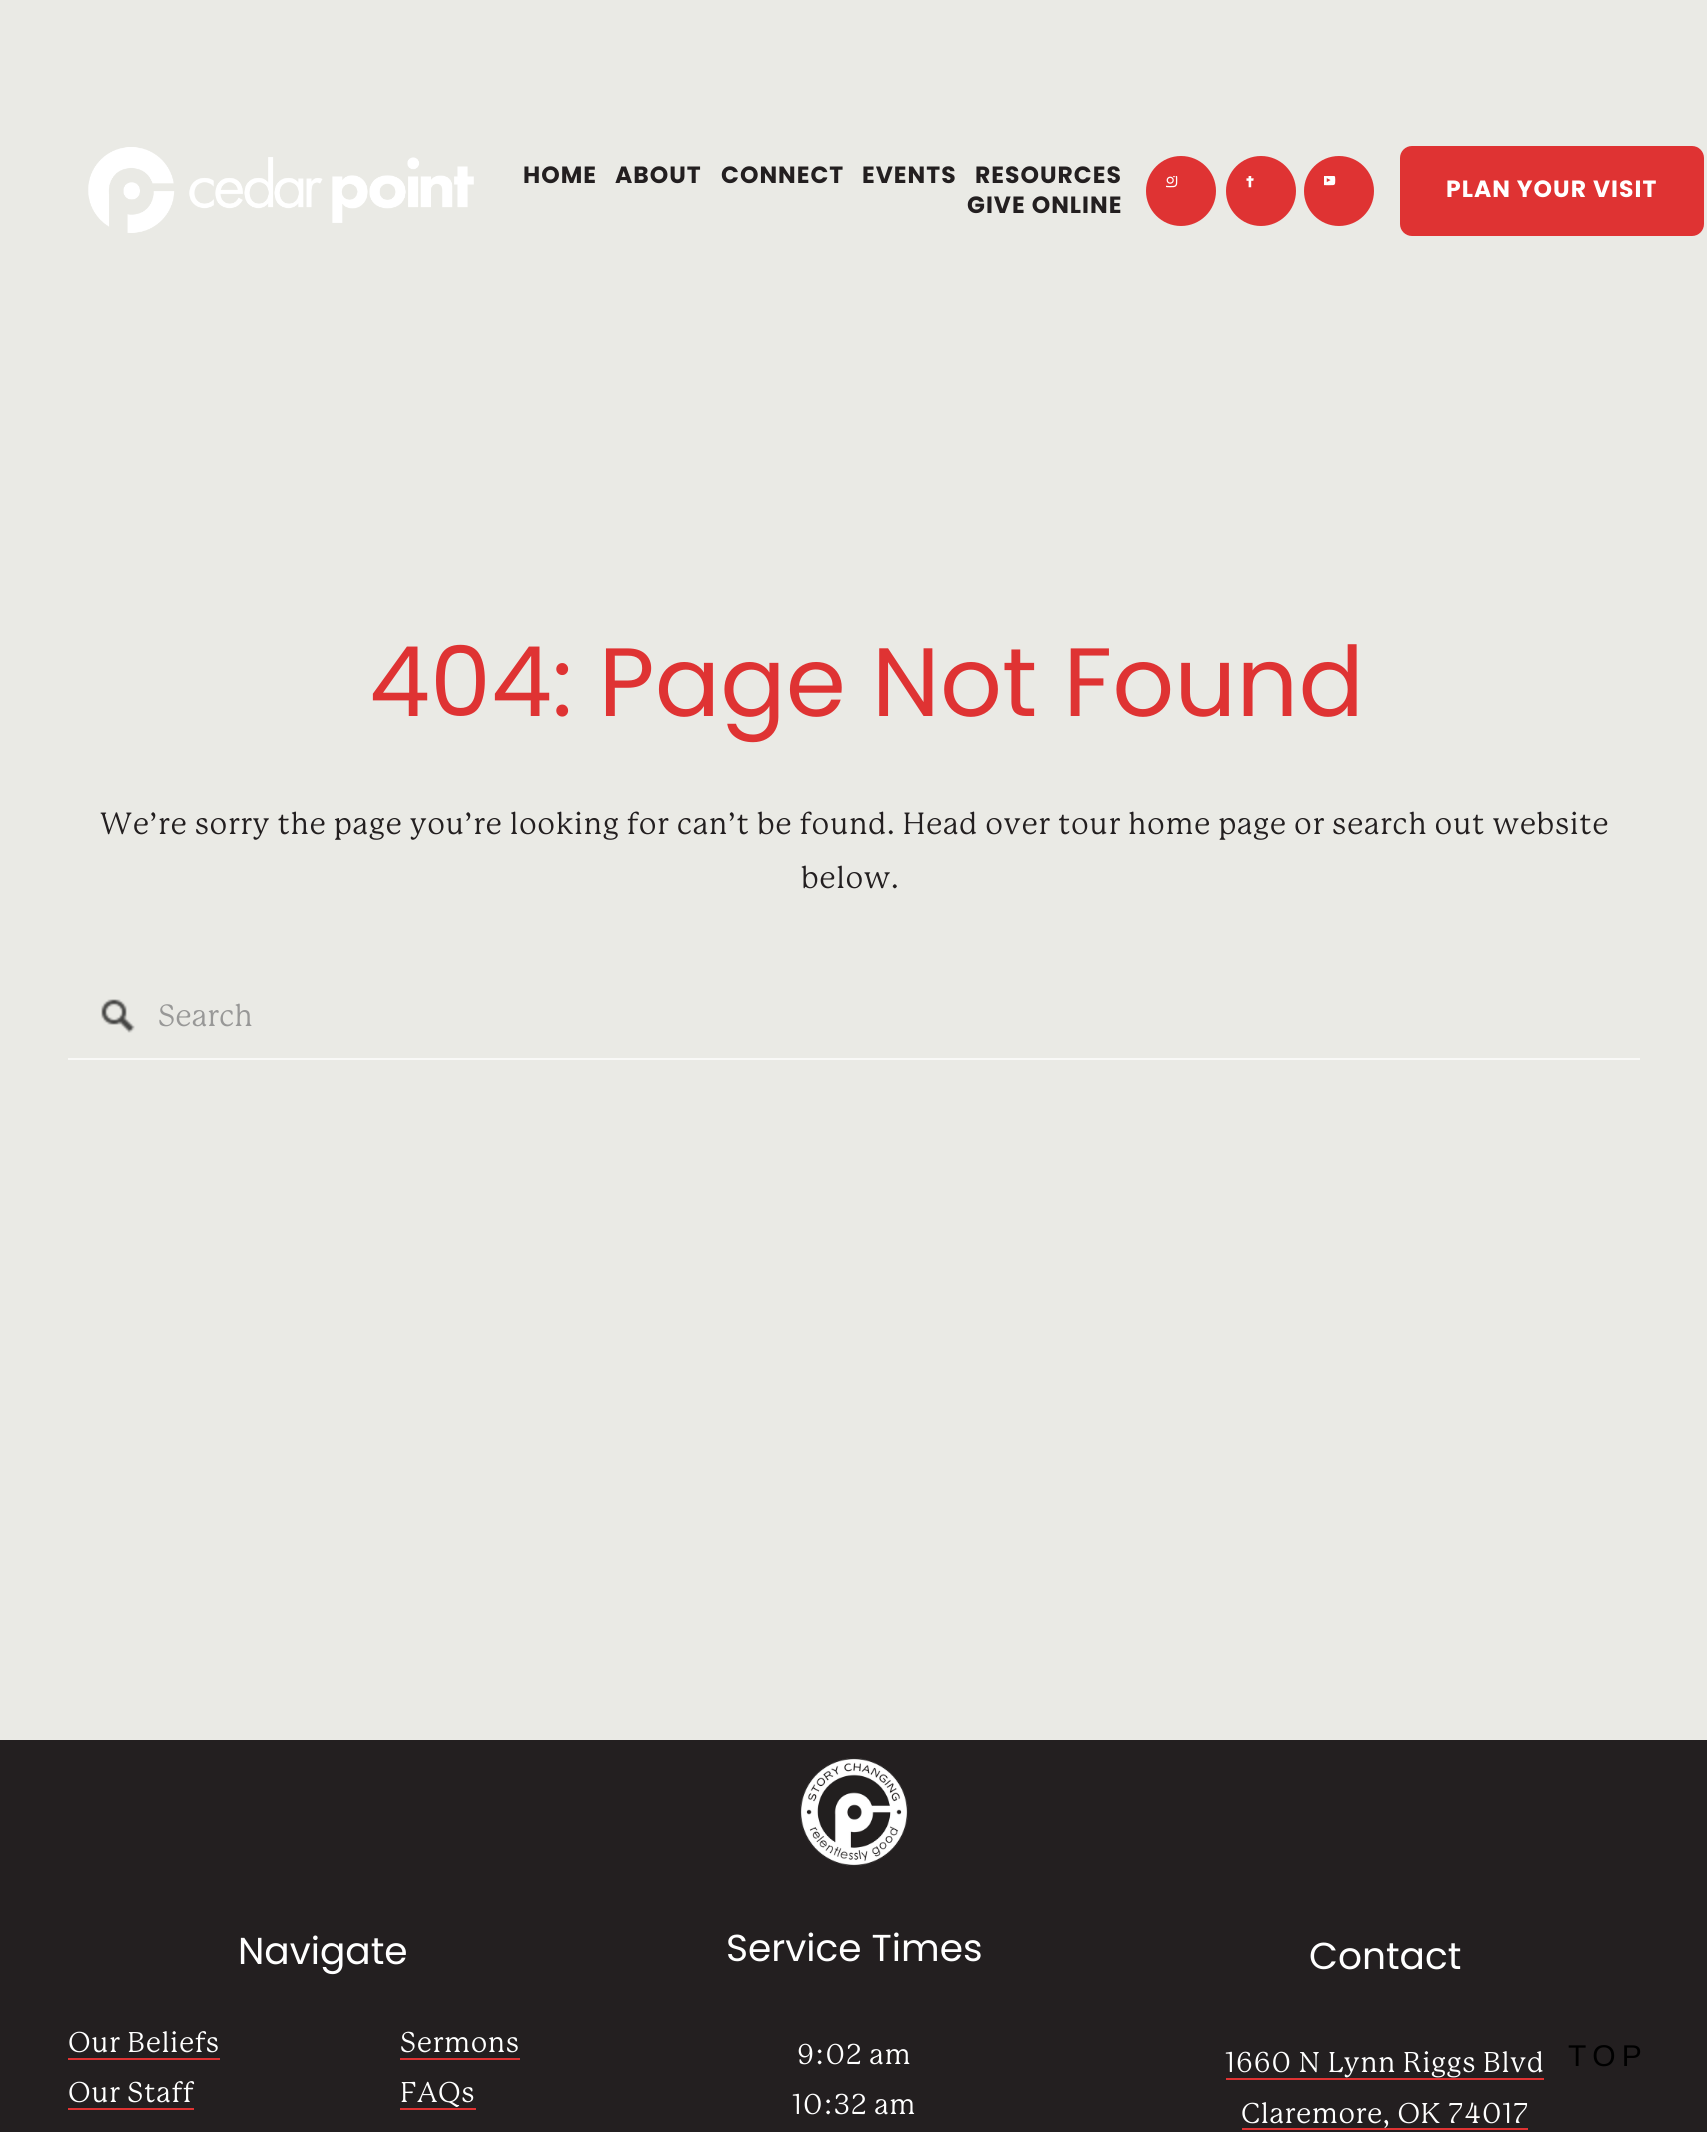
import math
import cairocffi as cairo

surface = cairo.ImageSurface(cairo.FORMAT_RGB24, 1707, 2132)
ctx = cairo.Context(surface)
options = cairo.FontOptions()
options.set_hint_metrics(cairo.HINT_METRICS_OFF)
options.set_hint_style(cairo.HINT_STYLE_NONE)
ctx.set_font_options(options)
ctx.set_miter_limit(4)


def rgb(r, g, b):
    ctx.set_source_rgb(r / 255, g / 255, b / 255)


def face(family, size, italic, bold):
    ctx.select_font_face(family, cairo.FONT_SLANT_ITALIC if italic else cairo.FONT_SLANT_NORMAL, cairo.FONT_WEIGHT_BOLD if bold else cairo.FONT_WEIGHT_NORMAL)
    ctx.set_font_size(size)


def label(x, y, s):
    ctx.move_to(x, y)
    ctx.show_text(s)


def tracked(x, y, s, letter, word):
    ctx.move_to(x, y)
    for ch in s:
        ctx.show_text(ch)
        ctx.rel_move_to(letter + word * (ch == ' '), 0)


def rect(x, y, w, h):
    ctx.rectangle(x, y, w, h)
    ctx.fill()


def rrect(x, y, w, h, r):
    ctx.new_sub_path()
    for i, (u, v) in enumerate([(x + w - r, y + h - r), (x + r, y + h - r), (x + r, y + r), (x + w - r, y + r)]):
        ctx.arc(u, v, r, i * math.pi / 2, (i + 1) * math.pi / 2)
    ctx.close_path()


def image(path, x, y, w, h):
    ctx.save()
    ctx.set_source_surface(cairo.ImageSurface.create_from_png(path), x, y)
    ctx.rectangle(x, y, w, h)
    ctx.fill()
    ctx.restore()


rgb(234, 234, 229)
ctx.paint()
image('image0.png', 88, 147, 386, 86)
face('Poppins', 23.5, 0, 1)
rgb(35, 31, 32)
tracked(523, 183, 'HOME', 1, 0)
tracked(615, 183, 'ABOUT', 1, 0)
tracked(721, 183, 'CONNECT', 1, 0)
tracked(862, 183, 'EVENTS', 1, 0)
tracked(975, 183, 'RESOURCES', 1, 0)
tracked(967, 213, 'GIVE ONLINE', 1, 0)
rgb(223, 51, 51)
ctx.new_path()
ctx.arc(1181, 191, 35, 0, 2 * math.pi)
ctx.fill()
image('image1.png', 1166, 176, 12, 12)
ctx.arc(1261, 191, 35, 0, 2 * math.pi)
ctx.fill()
image('image2.png', 1246, 176, 8, 12)
ctx.arc(1339, 191, 35, 0, 2 * math.pi)
ctx.fill()
image('image3.png', 1324, 176, 12, 10)
rrect(1400, 146, 304, 90, 12)
ctx.fill()
rgb(255, 255, 255)
tracked(1446, 197, 'PLAN YOUR VISIT', 1, 0)
face('Poppins', 97, 0, 0)
rgb(223, 51, 51)
label(369, 716, '404: Page Not Found')
face('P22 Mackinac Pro', 30.05, 0, 0)
rgb(35, 31, 32)
tracked(100, 834, 'We’re sorry the page you’re looking for can’t be found. Head over tour home page or search out website', 0.6, 0)
tracked(801, 888, 'below.', 0.6, 0)
image('image4.png', 101, 999, 34, 34)
rgb(249, 249, 247)
rect(68, 1058, 1572, 2)
rgb(152, 152, 151)
label(158, 1026, 'Search')
rgb(35, 31, 32)
rect(0, 1740, 1707, 392)
image('image5.png', 800, 1758, 108, 108)
face('P22 Mackinac Pro', 28, 0, 0)
rgb(255, 255, 255)
tracked(68, 2052, 'Our Beliefs', 0.6, 0)
rgb(223, 51, 51)
rect(68, 2058, 152, 2)
rgb(255, 255, 255)
tracked(68, 2102, 'Our Staff', 0.6, 0)
rgb(223, 51, 51)
rect(68, 2108, 126, 2)
face('Poppins', 37.5, 0, 0)
rgb(255, 255, 255)
label(238, 1964, 'Navigate')
face('P22 Mackinac Pro', 28, 0, 0)
tracked(400, 2052, 'Sermons', 0.6, 0)
rgb(223, 51, 51)
rect(400, 2058, 120, 2)
rgb(255, 255, 255)
tracked(400, 2102, 'FAQs', 0.6, 0)
rgb(223, 51, 51)
rect(400, 2108, 76, 2)
face('Poppins', 37.5, 0, 0)
rgb(255, 255, 255)
label(726, 1961, 'Service Times')
face('P22 Mackinac Pro', 28, 0, 0)
tracked(797, 2064, '9:02 am', 0.6, 0)
tracked(792, 2114, '10:32 am', 0.6, 0)
face('Poppins', 37.5, 0, 0)
label(1309, 1969, 'Contact')
face('P22 Mackinac Pro', 28, 0, 0)
tracked(1225, 2072, '1660 N Lynn Riggs Blvd', 0.6, 0)
rgb(223, 51, 51)
rect(1226, 2078, 318, 2)
rgb(255, 255, 255)
tracked(1241, 2123, 'Claremore, OK 74017', 0.6, 0)
rgb(223, 51, 51)
rect(1242, 2128, 286, 2)
face('Liberation Sans', 30, 0, 0)
rgb(0, 0, 0)
tracked(1568, 2066, 'TOP', 6, 0)
surface.write_to_png('render.png')
